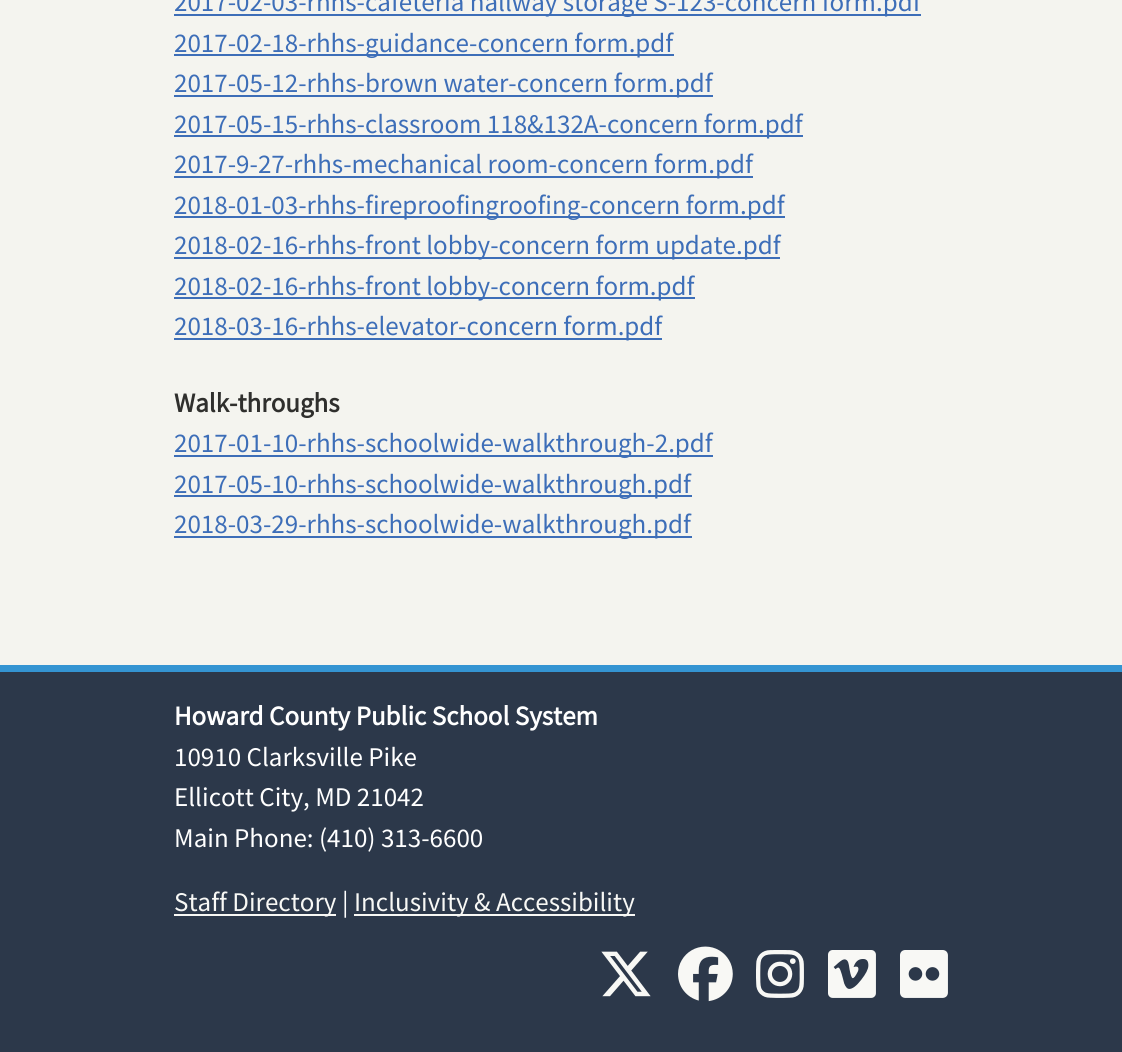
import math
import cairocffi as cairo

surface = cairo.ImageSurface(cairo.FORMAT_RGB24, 1122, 1052)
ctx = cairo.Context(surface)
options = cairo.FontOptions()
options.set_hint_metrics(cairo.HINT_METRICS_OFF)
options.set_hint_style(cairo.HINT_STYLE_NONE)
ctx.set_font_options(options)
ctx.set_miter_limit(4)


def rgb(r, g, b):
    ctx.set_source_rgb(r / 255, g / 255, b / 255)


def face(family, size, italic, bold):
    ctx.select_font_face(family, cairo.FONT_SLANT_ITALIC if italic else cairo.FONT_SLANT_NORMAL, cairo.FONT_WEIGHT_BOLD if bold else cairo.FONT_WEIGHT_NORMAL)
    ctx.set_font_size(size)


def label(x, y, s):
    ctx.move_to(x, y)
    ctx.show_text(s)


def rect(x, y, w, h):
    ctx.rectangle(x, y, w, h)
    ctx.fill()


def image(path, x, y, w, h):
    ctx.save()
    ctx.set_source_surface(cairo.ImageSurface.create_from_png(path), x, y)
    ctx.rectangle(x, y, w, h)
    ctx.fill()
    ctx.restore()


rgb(244, 244, 239)
ctx.paint()
rgb(61, 110, 184)
rect(174, 14, 747, 2)
face('Source Sans Pro', 27, 0, 0)
label(174, 11, '2017-02-03-rhhs-cafeteria hallway storage S-123-concern form.pdf')
rect(174, 54, 500, 2)
label(174, 52, '2017-02-18-rhhs-guidance-concern form.pdf')
rect(174, 95, 539, 2)
label(174, 92, '2017-05-12-rhhs-brown water-concern form.pdf')
rect(174, 135, 629, 2)
label(174, 133, '2017-05-15-rhhs-classroom 118&132A-concern form.pdf')
rect(174, 176, 579, 2)
label(174, 173, '2017-9-27-rhhs-mechanical room-concern form.pdf')
rect(174, 216, 611, 2)
label(174, 214, '2018-01-03-rhhs-fireproofingroofing-concern form.pdf')
rect(174, 257, 606, 2)
label(174, 254, '2018-02-16-rhhs-front lobby-concern form update.pdf')
rect(174, 297, 521, 2)
label(174, 295, '2018-02-16-rhhs-front lobby-concern form.pdf')
rect(174, 338, 488, 2)
label(174, 335, '2018-03-16-rhhs-elevator-concern form.pdf')
face('Source Sans Pro', 27, 0, 1)
rgb(47, 47, 45)
label(174, 412, 'Walk-throughs')
rgb(61, 110, 184)
rect(174, 455, 539, 2)
face('Source Sans Pro', 27, 0, 0)
label(174, 452, '2017-01-10-rhhs-schoolwide-walkthrough-2.pdf')
rect(174, 495, 518, 2)
label(174, 493, '2017-05-10-rhhs-schoolwide-walkthrough.pdf')
rect(174, 536, 518, 2)
label(174, 533, '2018-03-29-rhhs-schoolwide-walkthrough.pdf')
rgb(44, 56, 74)
rect(0, 672, 1122, 380)
rgb(52, 148, 210)
rect(0, 665, 1122, 7)
face('Source Sans Pro', 27, 0, 1)
rgb(255, 255, 255)
label(174, 725, 'Howard County Public School System')
face('Source Sans Pro', 27, 0, 0)
label(174, 766, '10910 Clarksville Pike')
label(174, 806, 'Ellicott City, MD 21042')
label(174, 847, 'Main Phone: (410) 313-6600')
rgb(248, 248, 245)
rect(174, 914, 162, 2)
label(174, 911, 'Staff Directory')
rgb(255, 255, 255)
label(342, 911, '|')
rgb(248, 248, 245)
rect(354, 914, 281, 2)
label(354, 911, 'Inclusivity & Accessibility')
image('image0.png', 601, 951, 50, 46)
image('image1.png', 678, 946, 55, 56)
image('image2.png', 756, 950, 48, 48)
image('image3.png', 828, 950, 48, 48)
image('image4.png', 900, 950, 48, 48)
surface.write_to_png('render.png')
